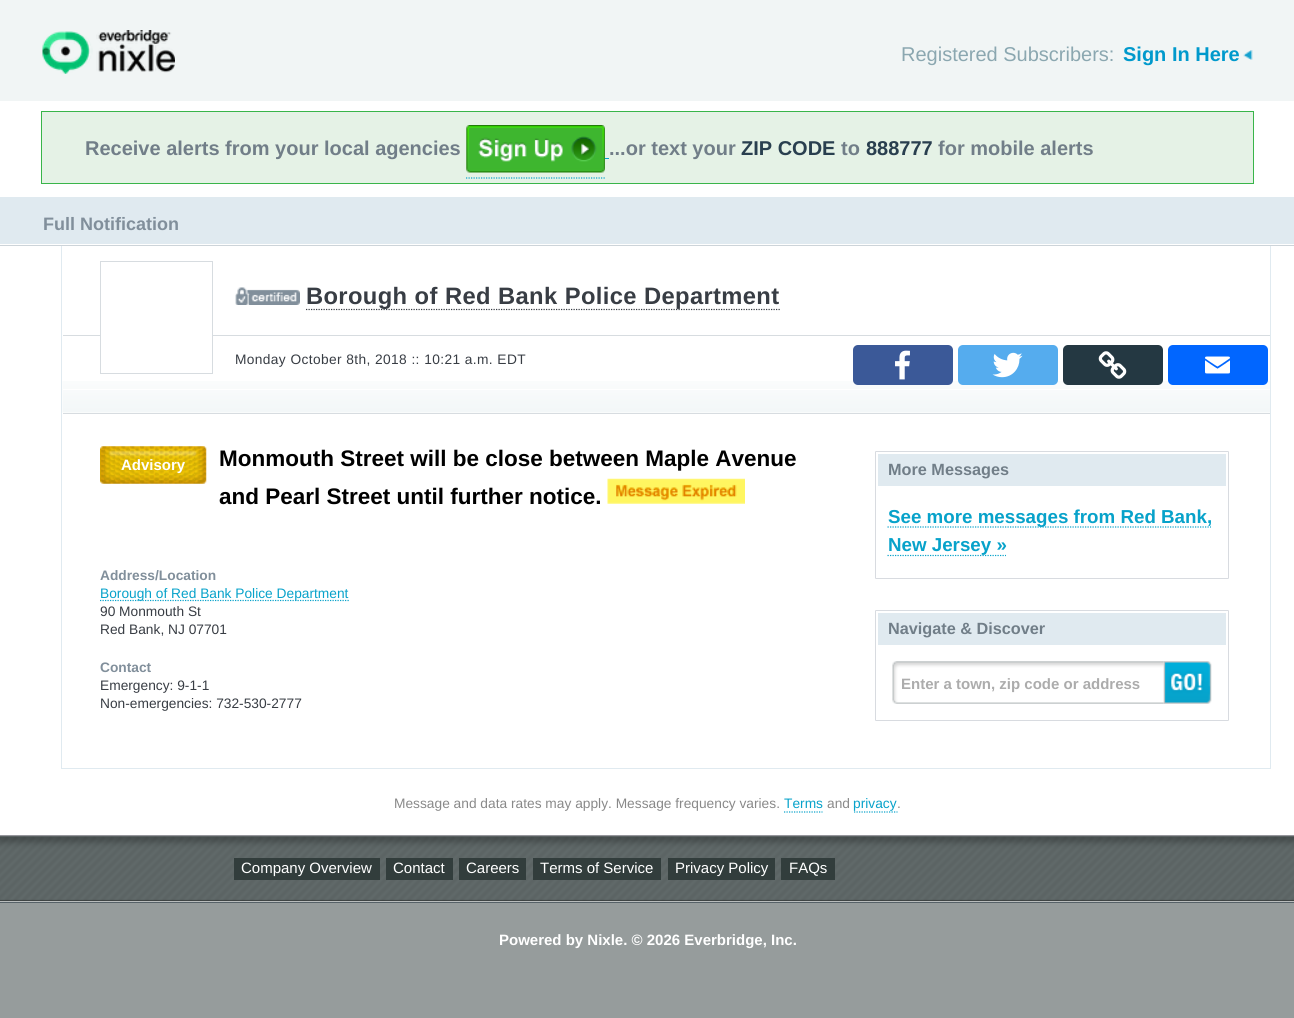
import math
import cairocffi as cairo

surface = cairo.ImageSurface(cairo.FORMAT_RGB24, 1294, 1018)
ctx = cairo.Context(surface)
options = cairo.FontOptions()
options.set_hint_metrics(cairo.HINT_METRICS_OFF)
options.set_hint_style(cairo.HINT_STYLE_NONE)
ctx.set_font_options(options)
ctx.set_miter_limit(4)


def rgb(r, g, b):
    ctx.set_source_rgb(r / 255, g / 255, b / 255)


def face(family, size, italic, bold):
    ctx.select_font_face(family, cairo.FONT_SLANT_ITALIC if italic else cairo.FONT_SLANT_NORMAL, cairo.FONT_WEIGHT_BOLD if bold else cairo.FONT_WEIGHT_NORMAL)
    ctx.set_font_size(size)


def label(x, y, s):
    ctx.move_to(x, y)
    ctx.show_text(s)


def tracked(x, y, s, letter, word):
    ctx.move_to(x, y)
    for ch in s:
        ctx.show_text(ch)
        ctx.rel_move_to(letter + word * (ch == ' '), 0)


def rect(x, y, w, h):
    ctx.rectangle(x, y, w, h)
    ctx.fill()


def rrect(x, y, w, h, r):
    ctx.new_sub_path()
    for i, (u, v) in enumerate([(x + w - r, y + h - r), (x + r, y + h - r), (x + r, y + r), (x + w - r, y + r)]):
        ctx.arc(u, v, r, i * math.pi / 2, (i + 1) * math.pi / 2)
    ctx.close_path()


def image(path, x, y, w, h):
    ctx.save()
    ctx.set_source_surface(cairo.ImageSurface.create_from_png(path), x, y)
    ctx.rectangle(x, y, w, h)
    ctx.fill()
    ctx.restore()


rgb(150, 156, 156)
ctx.paint()
rgb(241, 245, 245)
rect(0, 0, 1294, 101)
image('image0.png', 42, 30, 133, 44)
face('Liberation Sans', 20, 0, 0)
rgb(139, 167, 176)
label(901, 61, 'Registered Subscribers:')
image('image1.png', 1243, 50, 10, 10)
face('Liberation Sans', 20, 0, 1)
rgb(0, 153, 204)
label(1123, 61, 'Sign In Here')
rgb(255, 255, 255)
rect(0, 101, 1294, 96)
rgb(229, 242, 230)
ctx.rectangle(41.5, 111.5, 1212, 72)
ctx.fill_preserve()
rgb(57, 181, 74)
ctx.set_line_width(1)
ctx.stroke()
rgb(113, 126, 136)
label(85, 155, 'Receive alerts from your local agencies')
ctx.new_path()
ctx.move_to(466, 178)
ctx.line_to(605, 178)
rgb(7, 162, 202)
ctx.set_line_width(1.2)
ctx.set_dash([1.25, 1.25])
ctx.stroke()
rect(605, 158, 4, 1)
image('image2.png', 466, 125, 139, 48)
rgb(113, 126, 136)
label(609, 155, '...or text your')
rgb(41, 63, 79)
label(741, 155, 'ZIP CODE')
rgb(113, 126, 136)
label(841, 155, 'to')
rgb(41, 63, 79)
label(866, 155, '888777')
rgb(113, 126, 136)
label(938, 155, 'for mobile alerts')
rgb(224, 234, 240)
rect(0, 197, 1294, 47)
rgb(255, 255, 255)
rect(0, 244, 1294, 1)
face('Liberation Sans', 18, 0, 1)
rgb(129, 143, 155)
label(43, 230, 'Full Notification')
rgb(255, 255, 255)
rect(0, 246, 1294, 589)
rgb(205, 212, 217)
rect(0, 245, 1294, 1)
rgb(224, 234, 240)
rect(1270, 246, 1, 523)
rect(61, 768, 1210, 1)
rect(61, 246, 1, 523)
image('image3.png', 62, 381, 1208, 32)
rgb(215, 220, 224)
rect(63, 413, 1207, 1)
rect(63, 335, 1207, 1)
rgb(255, 255, 255)
rect(101, 335, 111, 1)
ctx.rectangle(100.5, 261.5, 112, 112)
rgb(215, 220, 224)
ctx.set_line_width(1)
ctx.set_dash([])
ctx.stroke()
image('image4.png', 235, 287, 65, 18)
ctx.new_path()
ctx.move_to(306, 309.5)
ctx.line_to(780, 309.5)
rgb(56, 61, 68)
ctx.set_line_width(1.2)
ctx.set_dash([1.25, 1.25])
ctx.stroke()
face('Liberation Sans', 23.75, 0, 1)
tracked(306, 304, 'Borough of Red Bank Police Department', 0.35, 0.25)
rgb(255, 255, 255)
rect(63, 389, 1207, 1)
face('Liberation Sans', 13.75, 0, 0)
rgb(56, 61, 68)
tracked(235, 364, 'Monday October 8th, 2018 :: 10:21 a.m. EDT', 0.35, 0.25)
rgb(59, 89, 152)
rrect(853, 345, 100, 40, 5)
ctx.fill()
image('image5.png', 895, 350, 15, 30)
rgb(85, 172, 238)
rrect(958, 345, 100, 40, 5)
ctx.fill()
image('image6.png', 992, 352, 31, 26)
rgb(36, 56, 66)
rrect(1063, 345, 100, 40, 5)
ctx.fill()
image('image7.png', 1098, 351, 29, 28)
rgb(1, 102, 255)
rrect(1168, 345, 100, 40, 5)
ctx.fill()
image('image8.png', 1205, 356, 25, 18)
image('image9.png', 100, 446, 107, 38)
face('Liberation Sans', 15, 0, 1)
rgb(255, 255, 255)
label(121, 470, 'Advisory')
face('Liberation Sans', 22.5, 0, 1)
rgb(0, 0, 0)
label(219, 466, 'Monmouth Street will be close between Maple Avenue')
label(219, 504, 'and Pearl Street until further notice.')
image('image10.png', 607, 478, 138, 26)
face('Liberation Sans', 13.75, 0, 1)
rgb(129, 143, 155)
label(100, 580, 'Address/Location')
ctx.new_path()
ctx.move_to(100, 600.5)
ctx.line_to(349, 600.5)
rgb(7, 162, 202)
ctx.stroke()
face('Liberation Sans', 13.75, 0, 0)
label(100, 598, 'Borough of Red Bank Police Department')
rgb(56, 61, 68)
label(100, 616, '90 Monmouth St')
label(100, 634, 'Red Bank, NJ 07701')
face('Liberation Sans', 13.75, 0, 1)
rgb(129, 143, 155)
label(100, 672, 'Contact')
face('Liberation Sans', 13.75, 0, 0)
rgb(56, 61, 68)
label(100, 690, 'Emergency: 9-1-1')
label(100, 708, 'Non-emergencies: 732-530-2777')
rrect(875.5, 451.5, 353, 127, 0.5)
rgb(216, 219, 224)
ctx.set_line_width(1)
ctx.set_dash([])
ctx.stroke()
rgb(224, 234, 240)
rect(878, 454, 348, 32)
face('Liberation Sans', 16.25, 0, 1)
rgb(113, 126, 136)
label(888, 475, 'More Messages')
ctx.new_path()
ctx.move_to(887.5, 527)
ctx.line_to(1211, 527)
rgb(7, 162, 202)
ctx.set_line_width(1.2)
ctx.set_dash([1.25, 1.25])
ctx.stroke()
face('Liberation Sans', 18.75, 0, 1)
label(888, 523, 'See more messages from Red Bank,')
ctx.new_path()
ctx.move_to(887.5, 555.5)
ctx.line_to(1006, 555.5)
ctx.stroke()
label(888, 551, 'New Jersey »')
rrect(875.5, 610.5, 353, 110, 0.5)
rgb(216, 219, 224)
ctx.set_line_width(1)
ctx.set_dash([])
ctx.stroke()
rgb(224, 234, 240)
rect(878, 613, 348, 32)
face('Liberation Sans', 16.25, 0, 1)
rgb(113, 126, 136)
label(888, 634, 'Navigate & Discover')
image('image11.png', 892, 661, 272, 43)
face('Liberation Sans', 15, 0, 1)
rgb(172, 172, 172)
label(901, 689, 'Enter a town, zip code or address')
image('image12.png', 1163, 661, 49, 43)
face('Liberation Sans', 13.75, 0, 0)
rgb(137, 137, 137)
label(394, 808, 'Message and data rates may apply. Message frequency varies.')
rgb(7, 162, 202)
label(784, 808, 'Terms')
ctx.new_path()
ctx.move_to(784, 812)
ctx.line_to(822.5, 812)
ctx.set_line_width(1.2)
ctx.set_dash([1.25, 1.25])
ctx.stroke()
rgb(137, 137, 137)
label(827, 808, 'and')
rgb(7, 162, 202)
label(853, 808, 'privacy')
ctx.new_path()
ctx.move_to(854, 812)
ctx.line_to(897.5, 812)
ctx.stroke()
rgb(137, 137, 137)
label(897, 808, '.')
image('image13.png', 0, 836, 1294, 67)
rgb(150, 150, 156)
rect(0, 835, 1294, 1)
rgb(184, 188, 188)
rect(0, 901, 1294, 1)
rgb(50, 61, 60)
rect(234, 858, 146, 22)
face('Liberation Sans', 15, 0, 0)
rgb(255, 255, 255)
label(241, 873, 'Company Overview')
rgb(50, 61, 60)
rect(386, 858, 67, 22)
rgb(255, 255, 255)
label(393, 873, 'Contact')
rgb(50, 61, 60)
rect(459, 858, 67, 22)
rgb(255, 255, 255)
label(466, 873, 'Careers')
rgb(50, 61, 60)
rect(533, 858, 128, 22)
rgb(255, 255, 255)
label(540, 873, 'Terms of Service')
rgb(50, 61, 60)
rect(668, 858, 107, 22)
rgb(255, 255, 255)
label(675, 873, 'Privacy Policy')
rgb(50, 61, 60)
rect(781, 858, 54, 22)
rgb(255, 255, 255)
label(789, 873, 'FAQs')
face('Liberation Sans', 15, 0, 1)
label(499, 945, 'Powered by Nixle. © 2026 Everbridge, Inc.')
surface.write_to_png('render.png')
